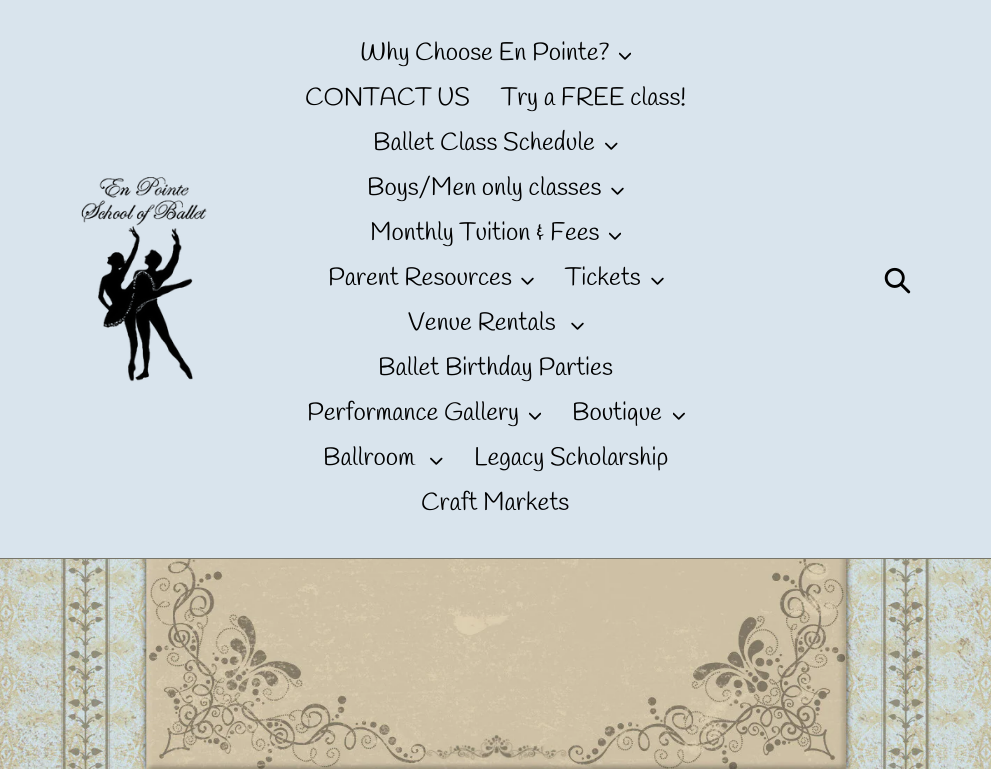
import math
import cairocffi as cairo

surface = cairo.ImageSurface(cairo.FORMAT_RGB24, 991, 769)
ctx = cairo.Context(surface)
options = cairo.FontOptions()
options.set_hint_metrics(cairo.HINT_METRICS_OFF)
options.set_hint_style(cairo.HINT_STYLE_NONE)
ctx.set_font_options(options)
ctx.set_miter_limit(4)


def rgb(r, g, b):
    ctx.set_source_rgb(r / 255, g / 255, b / 255)


def face(family, size, italic, bold):
    ctx.select_font_face(family, cairo.FONT_SLANT_ITALIC if italic else cairo.FONT_SLANT_NORMAL, cairo.FONT_WEIGHT_BOLD if bold else cairo.FONT_WEIGHT_NORMAL)
    ctx.set_font_size(size)


def label(x, y, s):
    ctx.move_to(x, y)
    ctx.show_text(s)


def rect(x, y, w, h):
    ctx.rectangle(x, y, w, h)
    ctx.fill()


def image(path, x, y, w, h):
    ctx.save()
    ctx.set_source_surface(cairo.ImageSurface.create_from_png(path), x, y)
    ctx.rectangle(x, y, w, h)
    ctx.fill()
    ctx.restore()


rgb(255, 255, 255)
ctx.paint()
image('image0.png', 0, 559, 991, 210)
rgb(217, 228, 237)
rect(0, 0, 991, 558)
rgb(119, 117, 106)
rect(0, 558, 991, 1)
image('image1.png', 81, 177, 126, 205)
face('Handlee', 25, 0, 0)
rgb(0, 0, 0)
label(360, 60, 'Why Choose En Pointe?')
image('image2.png', 619, 52, 12, 8)
label(305, 105, 'CONTACT US')
label(501, 105, 'Try a FREE class!')
label(373, 150, 'Ballet Class Schedule')
image('image3.png', 605, 142, 13, 8)
label(367, 195, 'Boys/Men only classes')
image('image4.png', 611, 187, 13, 8)
label(370, 240, 'Monthly Tuition & Fees')
image('image2.png', 609, 232, 12, 8)
label(328, 285, 'Parent Resources')
image('image4.png', 521, 277, 13, 8)
label(565, 285, 'Tickets')
image('image4.png', 651, 277, 13, 8)
label(408, 330, 'Venue Rentals')
image('image4.png', 571, 322, 13, 8)
label(378, 375, 'Ballet Birthday Parties')
label(307, 420, 'Performance Gallery')
image('image2.png', 529, 412, 12, 8)
label(572, 420, 'Boutique')
image('image5.png', 673, 412, 12, 8)
label(323, 465, 'Ballroom')
image('image3.png', 430, 457, 13, 8)
label(474, 465, 'Legacy Scholarship')
label(421, 510, 'Craft Markets')
image('image6.png', 884, 267, 27, 27)
surface.write_to_png('render.png')
